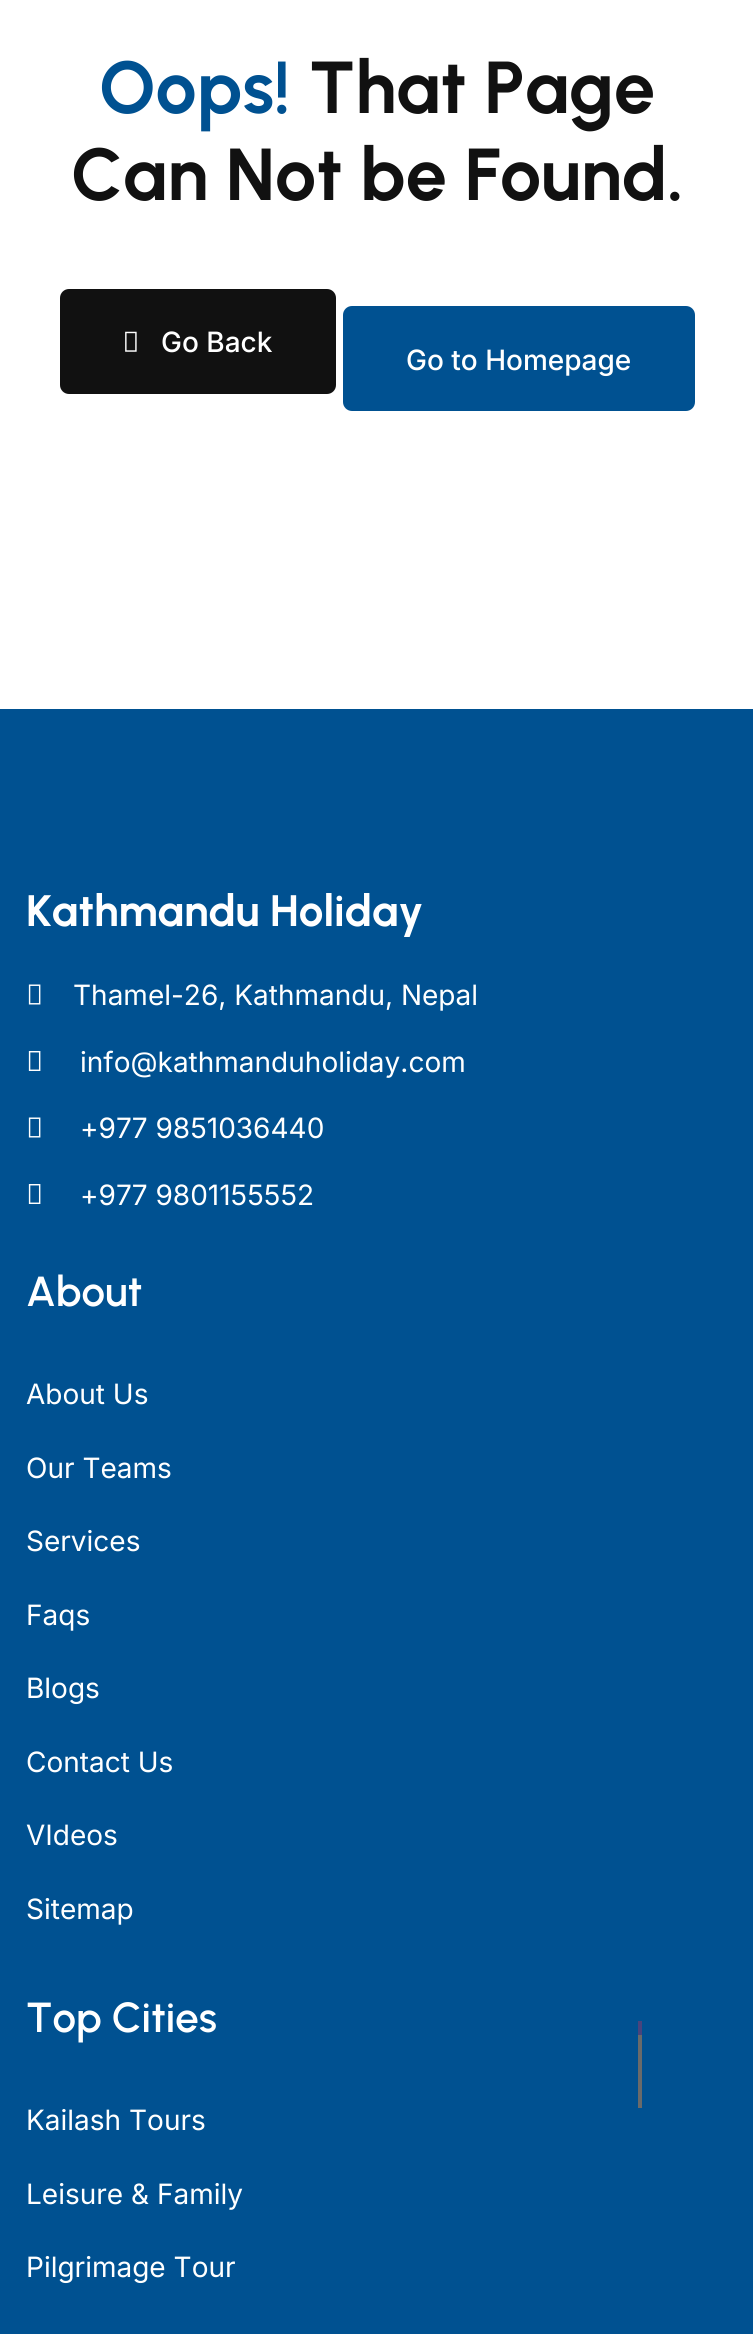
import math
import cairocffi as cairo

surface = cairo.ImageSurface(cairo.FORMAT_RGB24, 753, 2334)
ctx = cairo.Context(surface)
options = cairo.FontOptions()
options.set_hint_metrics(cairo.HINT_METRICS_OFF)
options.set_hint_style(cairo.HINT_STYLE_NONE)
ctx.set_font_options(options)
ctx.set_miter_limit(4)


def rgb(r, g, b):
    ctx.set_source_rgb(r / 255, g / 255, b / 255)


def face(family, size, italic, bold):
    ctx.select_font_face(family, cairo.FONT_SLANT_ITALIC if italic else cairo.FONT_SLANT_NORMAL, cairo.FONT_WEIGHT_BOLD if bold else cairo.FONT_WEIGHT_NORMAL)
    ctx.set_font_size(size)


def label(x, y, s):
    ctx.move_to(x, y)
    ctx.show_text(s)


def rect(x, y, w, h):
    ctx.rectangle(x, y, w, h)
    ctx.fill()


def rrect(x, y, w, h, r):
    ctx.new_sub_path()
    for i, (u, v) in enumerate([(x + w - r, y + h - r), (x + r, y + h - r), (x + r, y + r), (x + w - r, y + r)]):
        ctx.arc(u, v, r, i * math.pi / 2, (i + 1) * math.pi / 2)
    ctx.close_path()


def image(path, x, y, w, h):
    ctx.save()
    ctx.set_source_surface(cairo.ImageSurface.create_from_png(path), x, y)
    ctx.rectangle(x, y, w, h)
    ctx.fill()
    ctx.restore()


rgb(255, 255, 255)
ctx.paint()
face('Urbanist', 73.5, 0, 1)
rgb(0, 81, 145)
label(99, 113, 'Oops!')
rgb(17, 17, 17)
label(309, 113, 'That Page')
label(71, 200, 'Can Not be Found.')
rrect(60, 289, 276, 105, 9)
ctx.fill()
image('image0.png', 125, 331, 12, 21)
face('Inter Medium', 28, 0, 0)
rgb(255, 255, 255)
label(161, 352, 'Go Back')
rgb(0, 81, 145)
rrect(343, 306, 352, 105, 9)
ctx.fill()
rgb(255, 255, 255)
label(406, 370, 'Go to Homepage')
rgb(0, 81, 145)
rect(0, 709, 753, 1625)
face('Urbanist', 44, 0, 1)
rgb(255, 255, 255)
label(26, 926, 'Kathmandu Holiday')
image('image1.png', 28, 984, 13, 21)
face('Inter', 28, 0, 0)
label(73, 1005, 'Thamel-26, Kathmandu, Nepal')
image('image2.png', 28, 1051, 13, 20)
label(80, 1072, 'info@kathmanduholiday.com')
image('image1.png', 28, 1117, 13, 21)
label(80, 1138, '+977 9851036440')
image('image2.png', 28, 1184, 13, 20)
label(80, 1205, '+977 9801155552')
face('Urbanist SemiBold', 42, 0, 0)
label(26, 1306, 'About')
face('Inter', 28, 0, 0)
label(26, 1404, 'About Us')
label(26, 1478, 'Our Teams')
label(26, 1551, 'Services')
label(26, 1625, 'Faqs')
label(26, 1698, 'Blogs')
label(26, 1772, 'Contact Us')
label(26, 1845, 'VIdeos')
label(26, 1919, 'Sitemap')
face('Urbanist SemiBold', 42, 0, 0)
label(26, 2032, 'Top Cities')
face('Inter', 28, 0, 0)
label(26, 2130, 'Kailash Tours')
label(26, 2204, 'Leisure & Family')
label(26, 2277, 'Pilgrimage Tour')
rgb(73, 68, 125)
rect(638, 2021, 4, 14)
rgb(106, 106, 106)
rect(638, 2035, 4, 73)
surface.write_to_png('render.png')
